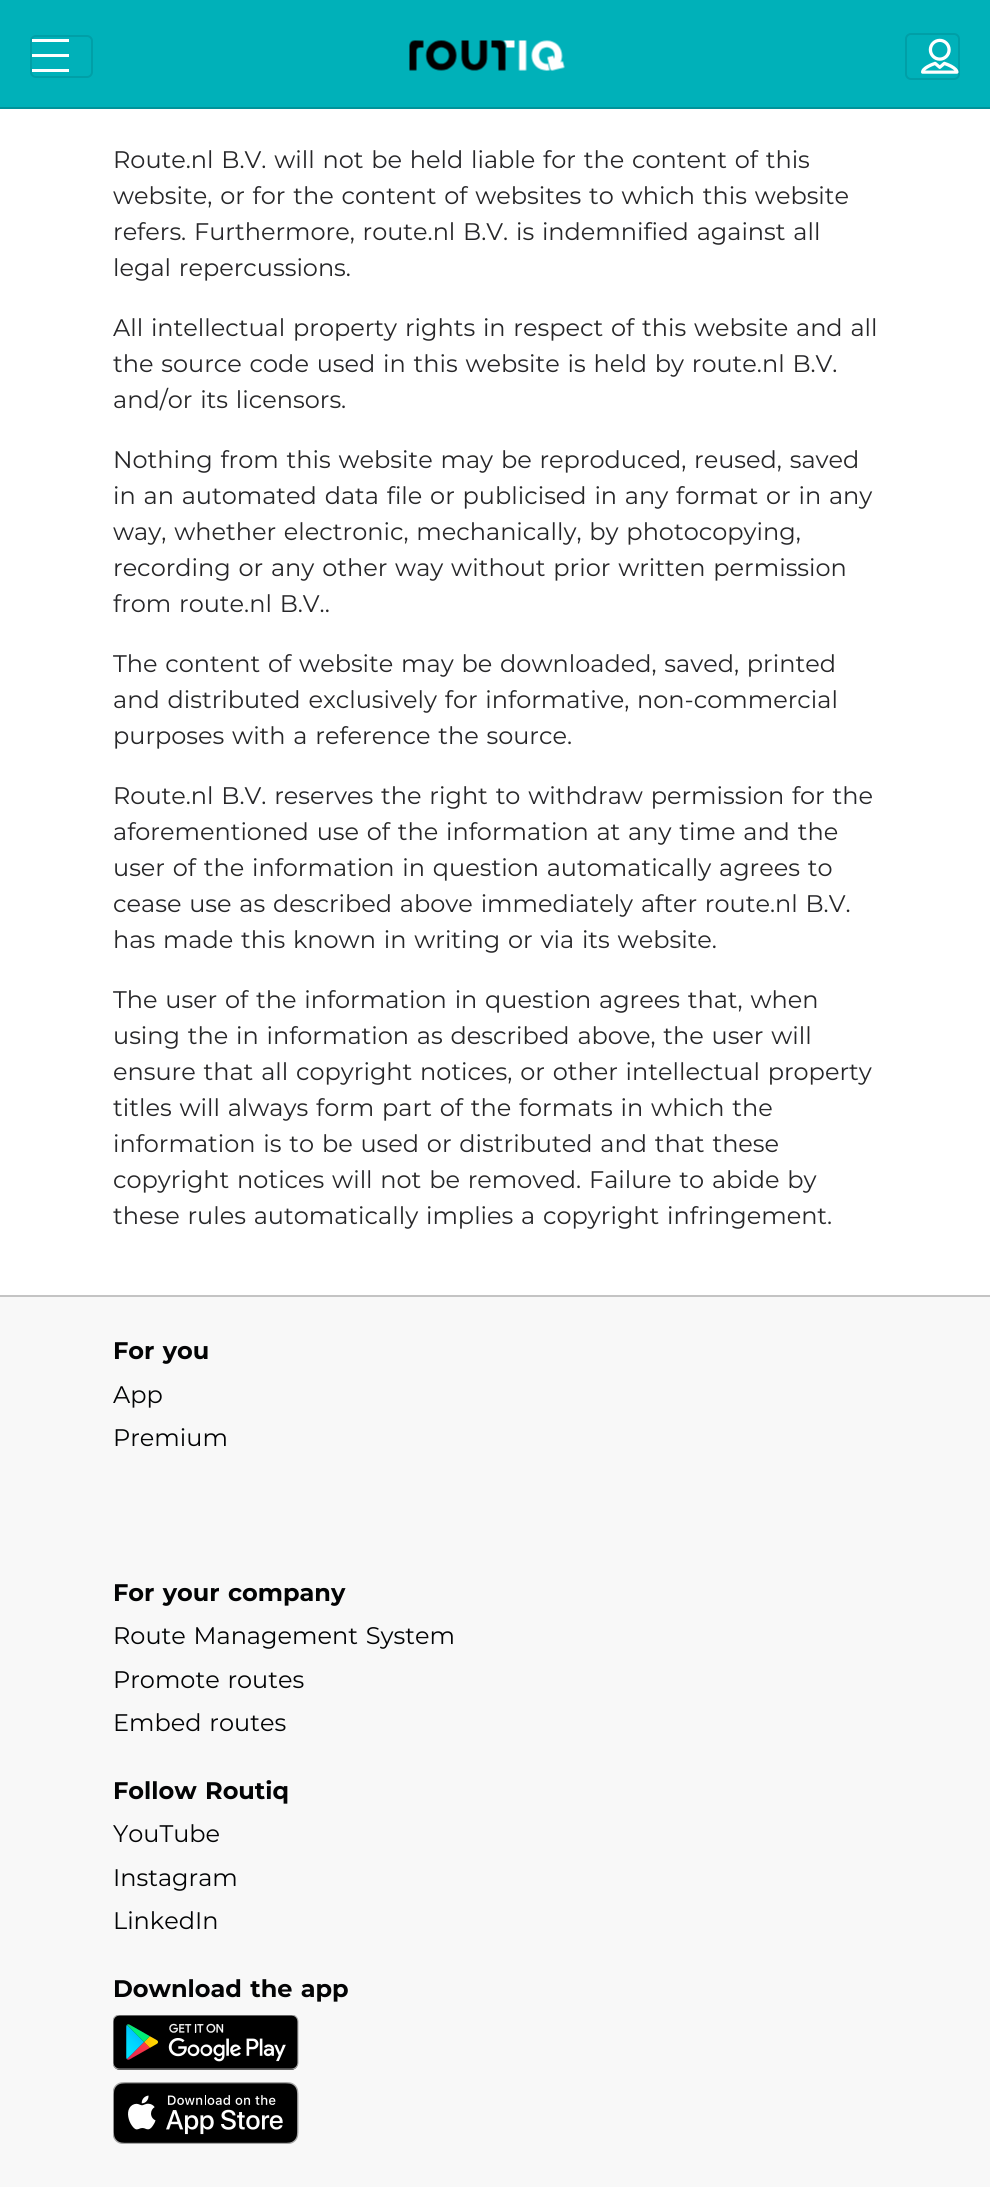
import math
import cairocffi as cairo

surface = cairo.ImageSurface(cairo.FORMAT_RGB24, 990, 2187)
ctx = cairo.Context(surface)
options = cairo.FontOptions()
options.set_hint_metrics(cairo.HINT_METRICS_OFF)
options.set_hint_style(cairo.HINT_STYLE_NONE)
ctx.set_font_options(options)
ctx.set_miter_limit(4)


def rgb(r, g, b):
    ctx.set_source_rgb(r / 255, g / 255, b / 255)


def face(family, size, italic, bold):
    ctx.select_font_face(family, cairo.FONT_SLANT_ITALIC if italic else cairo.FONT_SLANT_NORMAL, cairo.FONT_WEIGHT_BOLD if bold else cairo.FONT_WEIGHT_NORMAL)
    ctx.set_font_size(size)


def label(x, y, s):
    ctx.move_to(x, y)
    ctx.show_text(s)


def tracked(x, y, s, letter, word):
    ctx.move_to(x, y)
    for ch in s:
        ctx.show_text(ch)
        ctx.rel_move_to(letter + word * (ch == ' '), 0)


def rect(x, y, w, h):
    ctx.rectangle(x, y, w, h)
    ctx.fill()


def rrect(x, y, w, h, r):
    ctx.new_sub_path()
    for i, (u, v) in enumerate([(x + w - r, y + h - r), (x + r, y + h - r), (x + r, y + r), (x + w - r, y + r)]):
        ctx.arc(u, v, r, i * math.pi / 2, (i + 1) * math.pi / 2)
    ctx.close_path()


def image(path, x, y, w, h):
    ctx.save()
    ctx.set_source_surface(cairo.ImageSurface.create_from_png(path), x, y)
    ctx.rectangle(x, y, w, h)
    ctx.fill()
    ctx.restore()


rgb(255, 255, 255)
ctx.paint()
rgb(0, 177, 185)
rect(0, 0, 990, 107)
rgb(0, 147, 154)
rect(0, 107, 990, 2)
rrect(31, 36, 61, 41, 5)
rgb(0, 159, 167)
ctx.stroke()
rgb(255, 255, 255)
rect(32, 39, 37, 3)
rect(32, 54, 37, 3)
rect(32, 69, 37, 3)
image('image0.png', 409, 40, 156, 31)
rrect(906, 34, 53, 45, 5)
rgb(0, 159, 167)
ctx.stroke()
image('image1.png', 921, 38, 38, 36)
face('Montserrat', 24, 0, 0)
rgb(39, 39, 41)
tracked(113, 168, 'Route.nl B.V. will not be held liable for the content of this', 0, 1.5)
tracked(113, 204, 'website, or for the content of websites to which this website', 0, 1.5)
tracked(113, 240, 'refers. Furthermore, route.nl B.V. is indemnified against all', 0, 1.5)
tracked(113, 276, 'legal repercussions.', 0, 1.5)
tracked(113, 336, 'All intellectual property rights in respect of this website and all', 0, 1.5)
tracked(113, 372, 'the source code used in this website is held by route.nl B.V.', 0, 1.5)
tracked(113, 408, 'and/or its licensors.', 0, 1.5)
tracked(113, 468, 'Nothing from this website may be reproduced, reused, saved', 0, 1.5)
tracked(113, 504, 'in an automated data file or publicised in any format or in any', 0, 1.5)
tracked(113, 540, 'way, whether electronic, mechanically, by photocopying,', 0, 1.5)
tracked(113, 576, 'recording or any other way without prior written permission', 0, 1.5)
tracked(113, 612, 'from route.nl B.V..', 0, 1.5)
tracked(113, 672, 'The content of website may be downloaded, saved, printed', 0, 1.5)
tracked(113, 708, 'and distributed exclusively for informative, non-commercial', 0, 1.5)
tracked(113, 744, 'purposes with a reference the source.', 0, 1.5)
tracked(113, 804, 'Route.nl B.V. reserves the right to withdraw permission for the', 0, 1.5)
tracked(113, 840, 'aforementioned use of the information at any time and the', 0, 1.5)
tracked(113, 876, 'user of the information in question automatically agrees to', 0, 1.5)
tracked(113, 912, 'cease use as described above immediately after route.nl B.V.', 0, 1.5)
tracked(113, 948, 'has made this known in writing or via its website.', 0, 1.5)
tracked(113, 1008, 'The user of the information in question agrees that, when', 0, 1.5)
tracked(113, 1044, 'using the in information as described above, the user will', 0, 1.5)
tracked(113, 1080, 'ensure that all copyright notices, or other intellectual property', 0, 1.5)
tracked(113, 1116, 'titles will always form part of the formats in which the', 0, 1.5)
tracked(113, 1152, 'information is to be used or distributed and that these', 0, 1.5)
tracked(113, 1188, 'copyright notices will not be removed. Failure to abide by', 0, 1.5)
tracked(113, 1224, 'these rules automatically implies a copyright infringement.', 0, 1.5)
rgb(248, 248, 248)
rect(0, 1297, 990, 890)
rgb(196, 196, 196)
rect(0, 1295, 990, 2)
face('Montserrat', 24, 0, 1)
rgb(3, 4, 5)
tracked(113, 1359, 'For you', 0, 1.5)
face('Montserrat', 24, 0, 0)
label(113, 1403, 'App')
label(113, 1446, 'Premium')
face('Montserrat', 24, 0, 1)
tracked(113, 1601, 'For your company', 0, 1.5)
face('Montserrat', 24, 0, 0)
tracked(113, 1644, 'Route Management System', 0, 1.5)
tracked(113, 1688, 'Promote routes', 0, 1.5)
tracked(113, 1731, 'Embed routes', 0, 1.5)
face('Montserrat', 24, 0, 1)
tracked(113, 1799, 'Follow Routiq', 0, 1.5)
face('Montserrat', 24, 0, 0)
label(113, 1842, 'YouTube')
label(113, 1886, 'Instagram')
label(113, 1929, 'LinkedIn')
face('Montserrat', 24, 0, 1)
tracked(113, 1997, 'Download the app', 0, 1.5)
image('image2.png', 113, 2015, 186, 55)
image('image3.png', 113, 2082, 186, 62)
surface.write_to_png('render.png')
